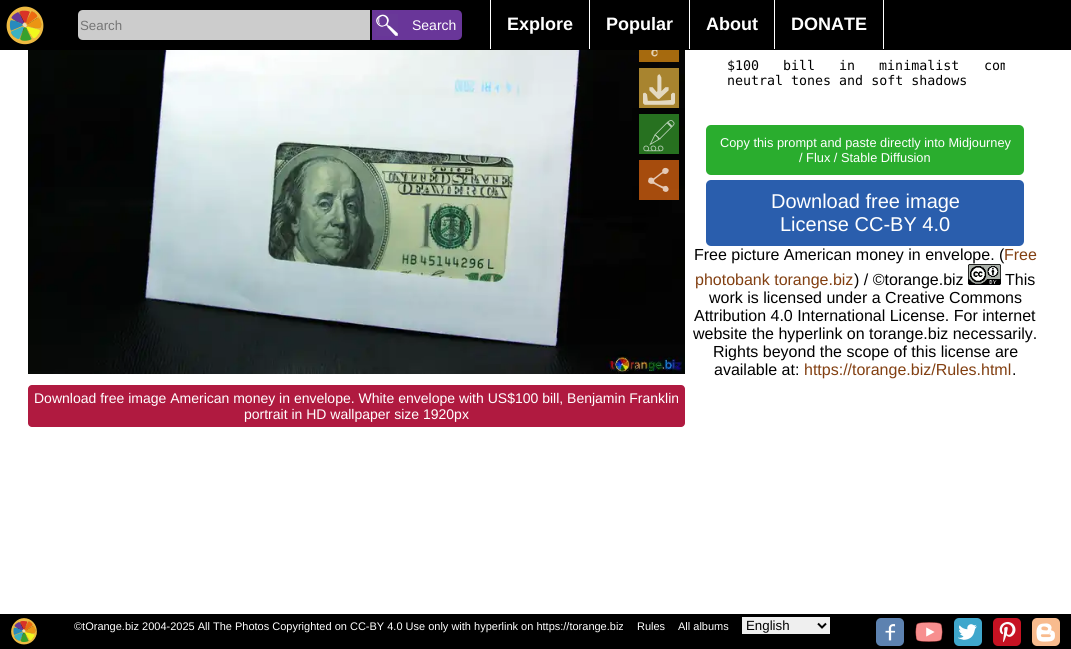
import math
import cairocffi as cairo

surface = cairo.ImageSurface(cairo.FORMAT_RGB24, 1071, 649)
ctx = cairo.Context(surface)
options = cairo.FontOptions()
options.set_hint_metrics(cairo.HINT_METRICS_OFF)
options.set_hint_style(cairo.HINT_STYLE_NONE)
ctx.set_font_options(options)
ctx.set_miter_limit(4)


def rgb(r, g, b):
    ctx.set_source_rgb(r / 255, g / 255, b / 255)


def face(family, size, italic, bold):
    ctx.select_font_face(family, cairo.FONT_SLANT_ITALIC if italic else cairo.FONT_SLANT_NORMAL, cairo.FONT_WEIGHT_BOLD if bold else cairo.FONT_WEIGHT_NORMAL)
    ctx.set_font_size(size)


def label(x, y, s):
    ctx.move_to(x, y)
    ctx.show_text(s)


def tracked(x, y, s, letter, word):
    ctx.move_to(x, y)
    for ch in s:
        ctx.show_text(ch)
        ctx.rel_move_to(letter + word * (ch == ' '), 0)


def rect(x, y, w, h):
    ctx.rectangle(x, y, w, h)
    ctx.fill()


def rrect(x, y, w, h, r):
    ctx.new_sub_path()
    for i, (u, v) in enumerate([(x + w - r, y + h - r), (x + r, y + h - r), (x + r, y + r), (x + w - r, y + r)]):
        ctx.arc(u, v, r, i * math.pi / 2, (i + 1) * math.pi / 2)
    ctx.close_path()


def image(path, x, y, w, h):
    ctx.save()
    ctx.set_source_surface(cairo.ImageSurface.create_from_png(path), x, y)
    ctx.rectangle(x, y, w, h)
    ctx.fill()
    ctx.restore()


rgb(255, 255, 255)
ctx.paint()
rgb(0, 0, 0)
rect(0, 0, 1071, 50)
image('image0.png', 6, 6, 38, 39)
rgb(204, 204, 204)
ctx.new_path()
ctx.move_to(83, 10)
ctx.line_to(370, 10)
ctx.line_to(370, 40)
ctx.line_to(83, 40)
ctx.curve_to(80, 40, 78, 38, 78, 35)
ctx.line_to(78, 15)
ctx.curve_to(78, 12, 80, 10, 83, 10)
ctx.close_path()
ctx.fill()
face('Liberation Sans', 13.3, 0, 0)
rgb(117, 117, 117)
label(80, 30, 'Search')
rgb(105, 54, 153)
ctx.new_path()
ctx.move_to(372, 10)
ctx.line_to(457, 10)
ctx.curve_to(460, 10, 462, 12, 462, 15)
ctx.line_to(462, 35)
ctx.curve_to(462, 38, 460, 40, 457, 40)
ctx.line_to(372, 40)
ctx.close_path()
ctx.fill()
image('image1.png', 376, 14, 22, 22)
face('Liberation Sans', 14, 0, 0)
rgb(255, 255, 255)
label(412, 30, 'Search')
rect(490, 0, 1, 49)
face('Liberation Sans', 18, 0, 1)
label(507, 30, 'Explore')
rect(589, 0, 1, 49)
label(606, 30, 'Popular')
rect(689, 0, 1, 49)
label(706, 30, 'About')
rect(883, 0, 1, 49)
rect(774, 0, 1, 49)
label(791, 30, 'DONATE')
face('DejaVu Sans Mono', 13.3, 0, 0)
rgb(0, 0, 0)
tracked(727, 70, '$100 bill in minimalist', 0, 16)
ctx.save()
ctx.rectangle(725, 41, 280, 80)
ctx.clip()
label(984, 70, 'com')
ctx.restore()
label(727, 85, 'neutral tones and soft shadows')
rgb(42, 173, 46)
rrect(706, 125, 318, 50, 5)
ctx.fill()
face('Liberation Sans', 12.8, 0, 0)
rgb(255, 255, 255)
label(720, 147, 'Copy this prompt and paste directly into Midjourney')
label(799, 162, '/ Flux / Stable Diffusion')
rgb(42, 94, 173)
rrect(706, 180, 318, 66, 5)
ctx.fill()
face('Liberation Sans', 20, 0, 0)
rgb(255, 255, 255)
label(771, 208, 'Download free image')
label(780, 231, 'License CC-BY 4.0')
face('Liberation Sans', 16, 0, 0)
rgb(0, 0, 0)
label(694, 260, 'Free picture American money in envelope. (')
rgb(130, 63, 17)
label(1004, 260, 'Free')
label(695, 285, 'photobank torange.biz')
rgb(0, 0, 0)
label(854, 285, ') / ©torange.biz')
image('image2.png', 968, 264, 33, 21)
label(1005, 285, 'This')
label(709, 303, 'work is licensed under a Creative Commons')
label(694, 321, 'Attribution 4.0 International License. For internet')
label(693, 339, 'website the hyperlink on torange.biz necessarily.')
label(713, 357, 'Rights beyond the scope of this license are')
label(714, 375, 'available at:')
rgb(130, 63, 17)
label(804, 375, 'https://torange.biz/Rules.html')
rgb(0, 0, 0)
label(1012, 375, '.')
image('image3.png', 28, 50, 657, 324)
image('image4.png', 639, 50, 40, 12)
image('image5.png', 639, 68, 40, 40)
image('image6.png', 639, 114, 40, 40)
image('image7.png', 639, 160, 40, 40)
rgb(176, 26, 64)
rrect(28, 385, 657, 42, 4)
ctx.fill()
face('Liberation Sans', 14, 0, 0)
rgb(255, 255, 255)
label(34, 403, 'Download free image American money in envelope. White envelope with US$100 bill, Benjamin Franklin')
label(244, 419, 'portrait in HD wallpaper size 1920px')
rgb(0, 0, 0)
rect(0, 614, 1071, 35)
image('image8.png', 11, 618, 26, 27)
face('Liberation Sans', 11, 0, 0)
rgb(255, 255, 255)
label(74, 630, '©tOrange.biz 2004-2025 All The Photos Copyrighted on CC-BY 4.0 Use only with hyperlink on https://torange.biz')
label(637, 630, 'Rules')
label(678, 630, 'All albums')
rgb(239, 239, 239)
rect(742, 617, 88, 17)
ctx.new_path()
ctx.move_to(818, 623.5)
ctx.line_to(822, 627.5)
ctx.line_to(826, 623.5)
rgb(0, 0, 0)
ctx.stroke()
face('Liberation Sans', 13.3, 0, 0)
label(746, 630, 'English')
image('image9.png', 876, 618, 28, 28)
image('image10.png', 915, 622, 28, 20)
image('image11.png', 954, 618, 28, 28)
image('image12.png', 993, 618, 28, 28)
image('image13.png', 1032, 618, 28, 28)
surface.write_to_png('render.png')
